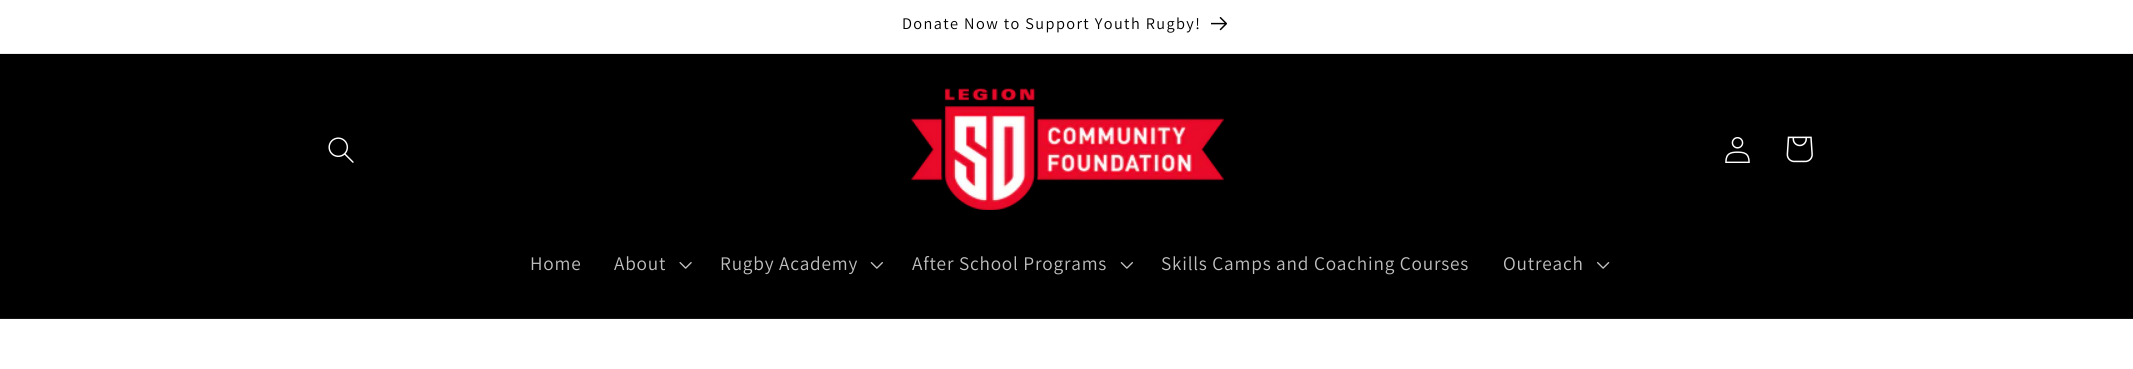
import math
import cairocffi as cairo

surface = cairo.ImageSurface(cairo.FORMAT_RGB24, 2133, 369)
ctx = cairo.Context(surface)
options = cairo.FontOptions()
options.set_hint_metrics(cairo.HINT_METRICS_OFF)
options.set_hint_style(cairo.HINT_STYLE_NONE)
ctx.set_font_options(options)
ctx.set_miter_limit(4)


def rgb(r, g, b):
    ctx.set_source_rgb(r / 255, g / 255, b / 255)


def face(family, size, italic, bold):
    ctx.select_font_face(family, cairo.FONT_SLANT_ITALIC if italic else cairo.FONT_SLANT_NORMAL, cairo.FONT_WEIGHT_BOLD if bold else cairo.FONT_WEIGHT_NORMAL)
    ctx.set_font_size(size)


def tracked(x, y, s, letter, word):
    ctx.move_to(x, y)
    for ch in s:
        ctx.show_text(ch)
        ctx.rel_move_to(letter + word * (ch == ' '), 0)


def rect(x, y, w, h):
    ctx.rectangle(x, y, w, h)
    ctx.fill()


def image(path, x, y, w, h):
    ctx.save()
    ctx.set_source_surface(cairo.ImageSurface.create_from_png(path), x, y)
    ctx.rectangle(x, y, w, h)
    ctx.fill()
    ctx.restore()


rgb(255, 255, 255)
ctx.paint()
rgb(235, 235, 235)
rect(0, 53, 2133, 1)
face('Assistant', 16.25, 0, 0)
rgb(0, 0, 0)
tracked(902, 29, 'Donate Now to Support Youth Rugby!', 1.4, 0)
image('image0.png', 1211, 17, 16, 14)
rect(0, 54, 2133, 264)
rgb(20, 20, 20)
rect(0, 318, 2133, 1)
image('image1.png', 328, 137, 26, 26)
image('image2.png', 911, 88, 313, 122)
image('image3.png', 1725, 137, 25, 26)
image('image4.png', 1786, 136, 27, 27)
face('Assistant', 19.25, 0, 0)
rgb(191, 191, 191)
tracked(530, 270, 'Home', 0.8, 0)
tracked(614, 270, 'About', 0.8, 0)
image('image5.png', 679, 262, 13, 7)
tracked(720, 270, 'Rugby Academy', 0.8, 0)
image('image6.png', 870, 262, 13, 7)
tracked(912, 270, 'After School Programs', 0.8, 0)
image('image6.png', 1120, 262, 13, 7)
tracked(1161, 270, 'Skills Camps and Coaching Courses', 0.8, 0)
tracked(1503, 270, 'Outreach', 0.8, 0)
image('image7.png', 1597, 262, 13, 7)
surface.write_to_png('render.png')
